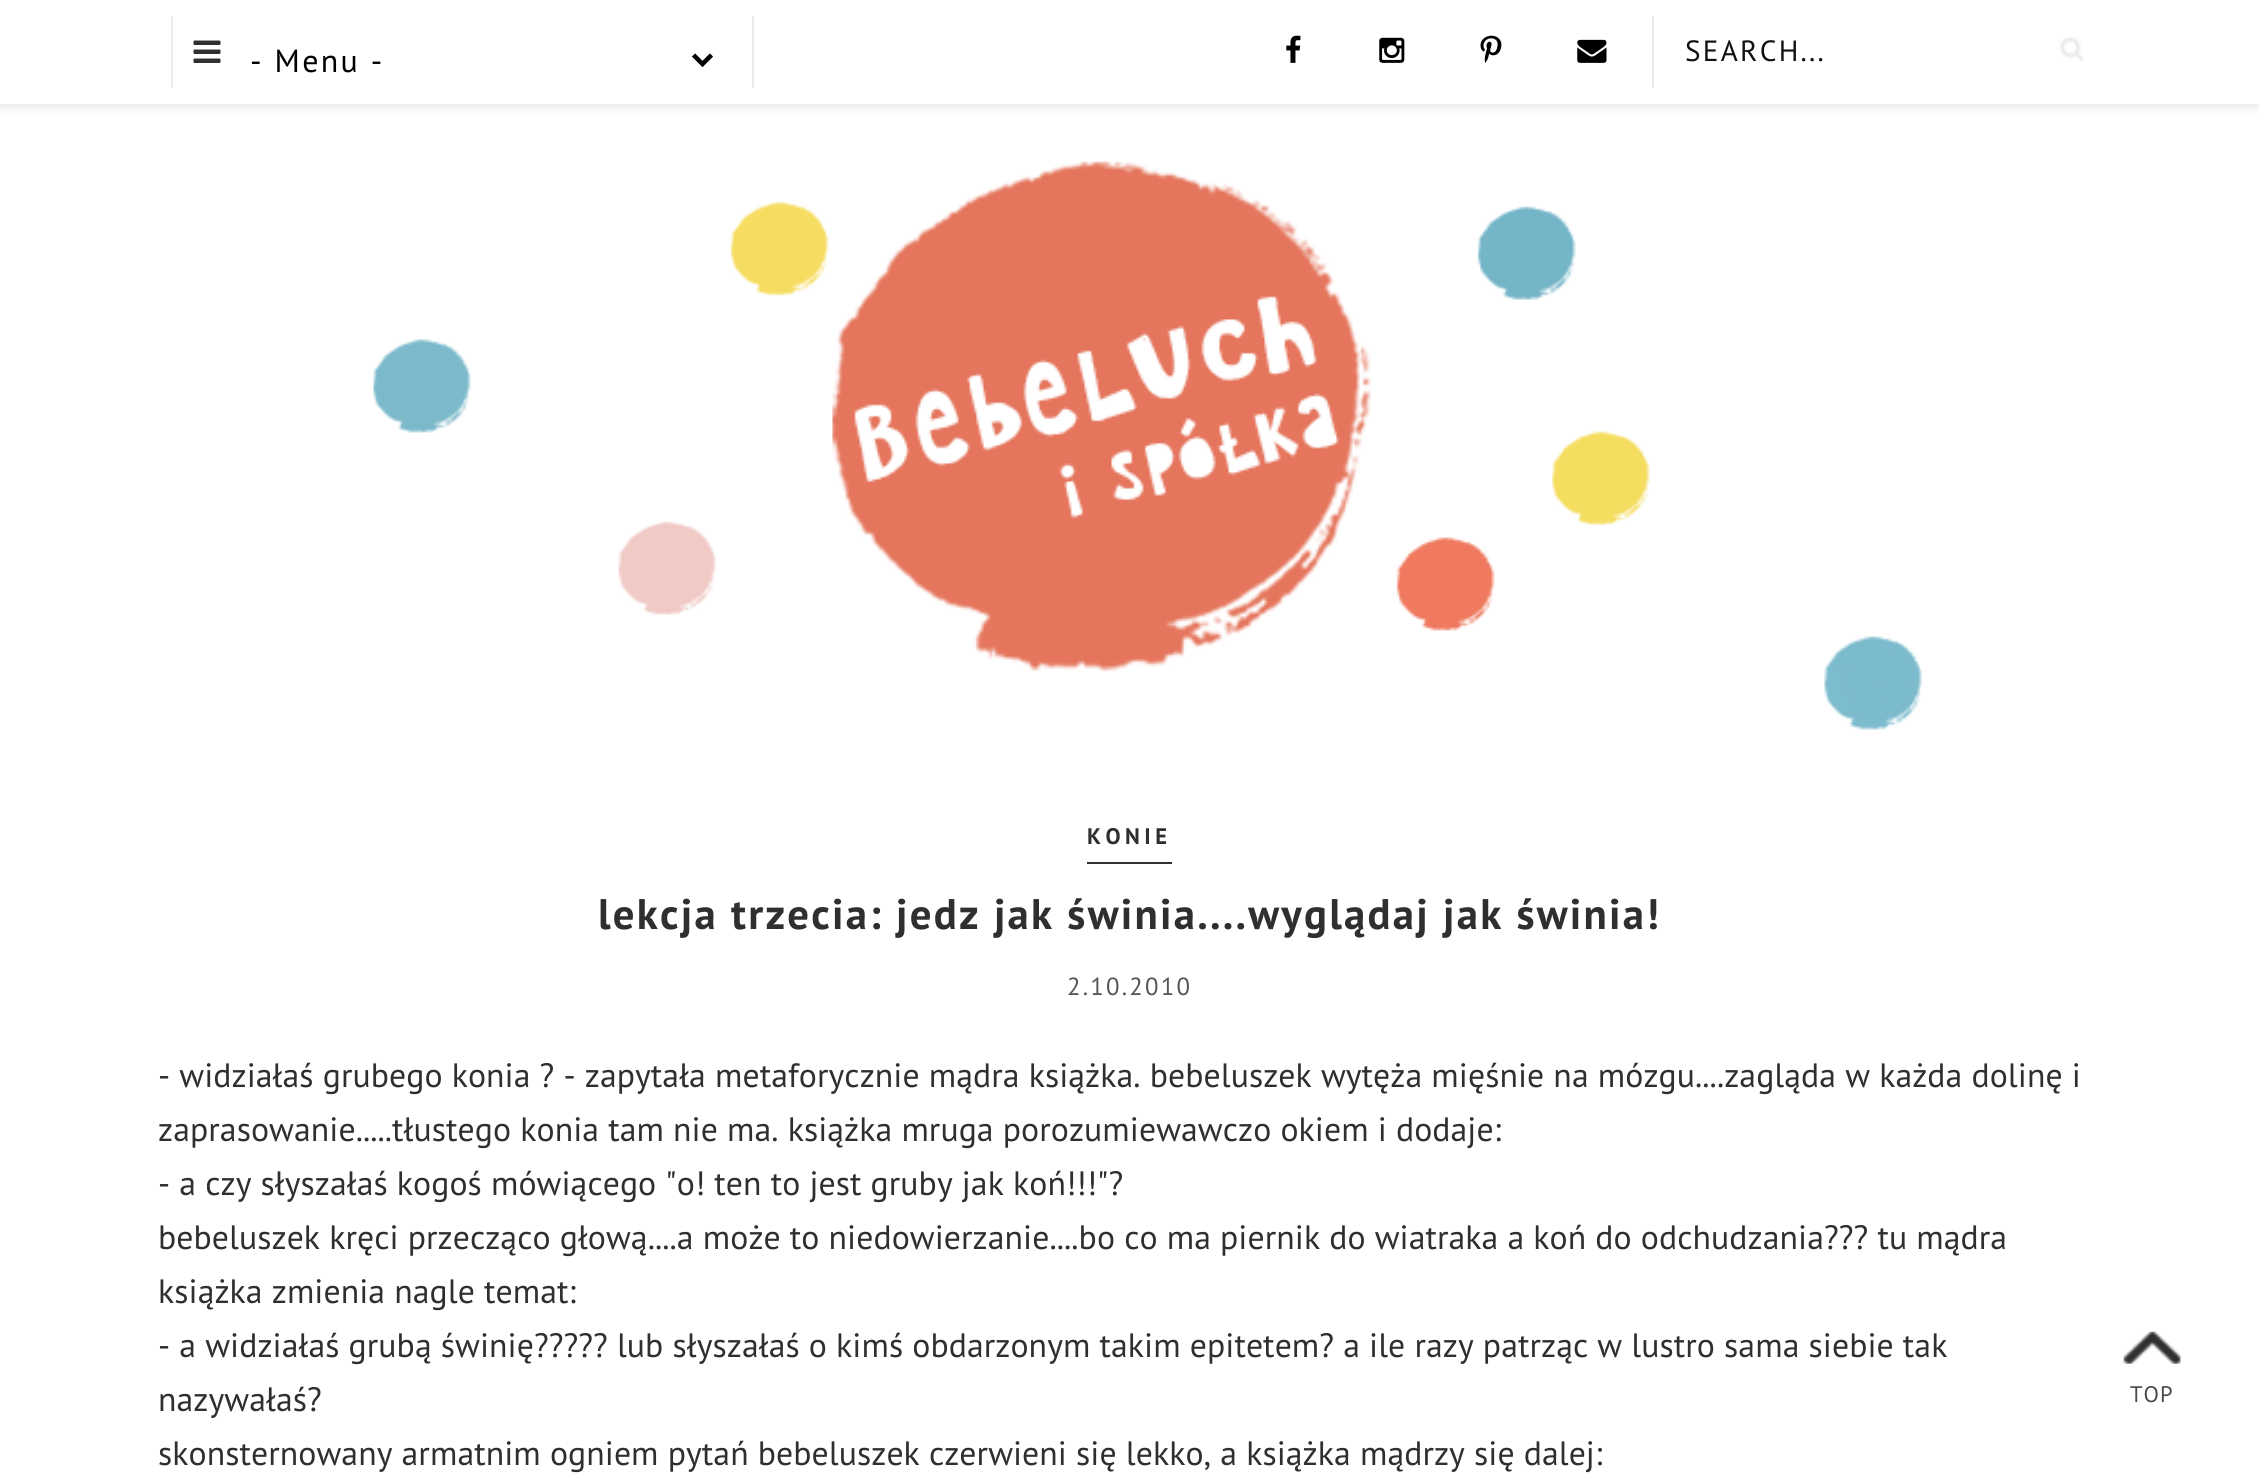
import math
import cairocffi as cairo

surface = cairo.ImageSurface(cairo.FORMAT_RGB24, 2259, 1479)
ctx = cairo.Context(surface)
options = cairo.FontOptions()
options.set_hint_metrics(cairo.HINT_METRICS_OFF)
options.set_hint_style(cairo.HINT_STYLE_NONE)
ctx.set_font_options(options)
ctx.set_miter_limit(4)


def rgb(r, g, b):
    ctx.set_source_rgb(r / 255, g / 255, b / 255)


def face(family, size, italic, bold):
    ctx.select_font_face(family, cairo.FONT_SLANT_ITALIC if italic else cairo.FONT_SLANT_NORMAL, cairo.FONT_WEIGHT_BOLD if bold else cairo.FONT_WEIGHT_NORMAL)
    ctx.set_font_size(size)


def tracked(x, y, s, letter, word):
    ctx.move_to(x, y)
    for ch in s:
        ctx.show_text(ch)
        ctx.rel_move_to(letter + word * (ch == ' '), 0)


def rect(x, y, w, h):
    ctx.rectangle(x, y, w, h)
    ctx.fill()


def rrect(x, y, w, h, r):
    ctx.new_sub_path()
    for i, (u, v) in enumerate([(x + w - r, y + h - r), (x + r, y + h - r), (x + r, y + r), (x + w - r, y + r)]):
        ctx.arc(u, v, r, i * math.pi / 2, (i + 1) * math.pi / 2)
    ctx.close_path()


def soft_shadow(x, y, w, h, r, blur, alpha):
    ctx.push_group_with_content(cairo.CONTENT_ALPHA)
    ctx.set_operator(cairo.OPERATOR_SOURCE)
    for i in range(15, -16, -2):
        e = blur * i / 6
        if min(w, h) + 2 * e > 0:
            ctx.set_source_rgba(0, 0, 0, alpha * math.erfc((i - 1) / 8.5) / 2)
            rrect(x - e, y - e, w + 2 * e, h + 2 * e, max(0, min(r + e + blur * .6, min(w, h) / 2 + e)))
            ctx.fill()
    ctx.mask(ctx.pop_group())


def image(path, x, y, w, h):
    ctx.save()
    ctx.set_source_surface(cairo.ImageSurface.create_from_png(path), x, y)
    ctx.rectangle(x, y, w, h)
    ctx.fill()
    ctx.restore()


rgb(255, 255, 255)
ctx.paint()
rgb(190, 190, 190)
soft_shadow(0, 2, 2259, 104, 0, 5.5, 0.46)
rgb(255, 255, 255)
rect(0, 0, 2259, 104)
rgb(234, 234, 234)
rect(171, 16, 2, 72)
image('image0.png', 193, 40, 28, 23)
ctx.new_path()
ctx.move_to(693.5, 55)
ctx.line_to(702.5, 64)
ctx.line_to(711.5, 55)
rgb(0, 0, 0)
ctx.set_line_width(4.5)
ctx.stroke()
face('PT Sans', 32, 0, 0)
tracked(250, 72, '- Menu -', 2.25, 0)
rgb(234, 234, 234)
rect(752, 16, 2, 72)
image('image1.png', 1286, 35, 15, 28)
image('image2.png', 1379, 37, 26, 26)
image('image3.png', 1480, 35, 22, 28)
image('image4.png', 1577, 39, 30, 24)
rect(1652, 16, 2, 72)
face('PT Sans', 29.25, 0, 0)
rgb(17, 17, 17)
tracked(1685, 61, 'SEARCH...', 2.25, 0)
image('image5.png', 2059, 37, 25, 25)
image('image6.png', 373, 161, 1550, 569)
rgb(47, 47, 47)
rect(1087, 862, 85, 2)
face('PT Sans', 22.5, 0, 1)
tracked(1087, 844, 'KONIE', 4.5, 0)
face('PT Sans', 42.75, 0, 1)
tracked(598, 929, 'lekcja trzecia: jedz jak świnia....wyglądaj jak świnia!', 2.25, 0)
face('PT Sans', 24.75, 0, 0)
rgb(85, 85, 85)
tracked(1067, 995, '2.10.2010', 2.25, 0)
face('PT Sans', 33.75, 0, 0)
rgb(47, 47, 47)
tracked(158, 1087, '- widziałaś grubego konia ? - zapytała metaforycznie mądra książka. bebeluszek wytęża mięśnie na mózgu....zagląda w każda dolinę i', 0.07, 0)
tracked(158, 1141, 'zaprasowanie.....tłustego konia tam nie ma. książka mruga porozumiewawczo okiem i dodaje:', 0.07, 0)
tracked(158, 1195, '- a czy słyszałaś kogoś mówiącego "o! ten to jest gruby jak koń!!!"?', 0.07, 0)
tracked(158, 1249, 'bebeluszek kręci przecząco głową....a może to niedowierzanie....bo co ma piernik do wiatraka a koń do odchudzania??? tu mądra', 0.07, 0)
tracked(158, 1303, 'książka zmienia nagle temat:', 0.07, 0)
tracked(158, 1357, '- a widziałaś grubą świnię????? lub słyszałaś o kimś obdarzonym takim epitetem? a ile razy patrząc w lustro sama siebie tak', 0.07, 0)
tracked(158, 1411, 'nazywałaś?', 0.07, 0)
tracked(158, 1465, 'skonsternowany armatnim ogniem pytań bebeluszek czerwieni się lekko, a książka mądrzy się dalej:', 0.07, 0)
image('image7.png', 2123, 1331, 58, 33)
face('PT Sans', 22.5, 0, 0)
rgb(74, 73, 73)
tracked(2130, 1402, 'TOP', 1, 0)
surface.write_to_png('render.png')
